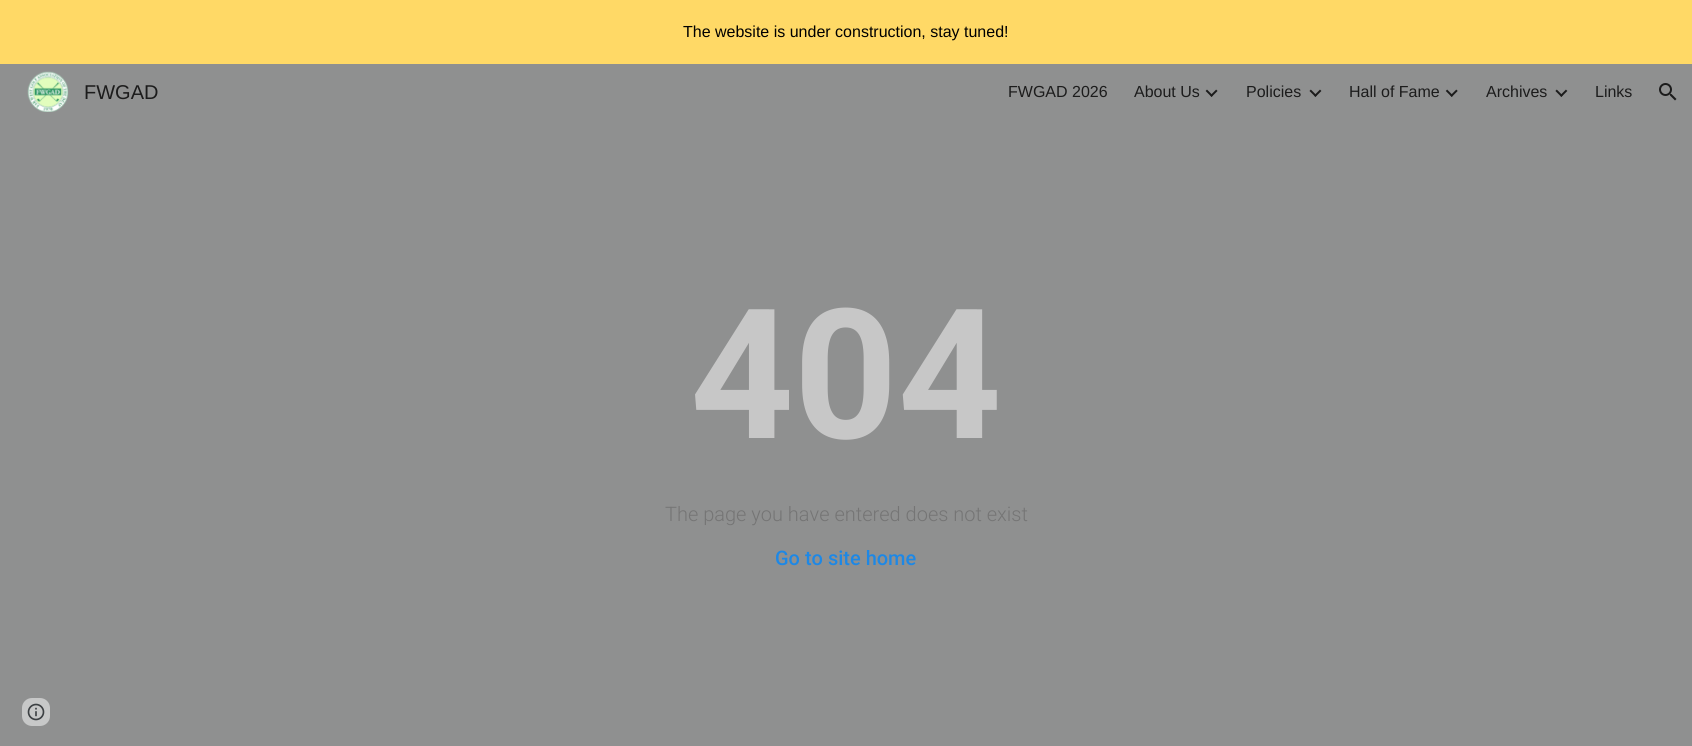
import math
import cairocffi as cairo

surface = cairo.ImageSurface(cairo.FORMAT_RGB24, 1692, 746)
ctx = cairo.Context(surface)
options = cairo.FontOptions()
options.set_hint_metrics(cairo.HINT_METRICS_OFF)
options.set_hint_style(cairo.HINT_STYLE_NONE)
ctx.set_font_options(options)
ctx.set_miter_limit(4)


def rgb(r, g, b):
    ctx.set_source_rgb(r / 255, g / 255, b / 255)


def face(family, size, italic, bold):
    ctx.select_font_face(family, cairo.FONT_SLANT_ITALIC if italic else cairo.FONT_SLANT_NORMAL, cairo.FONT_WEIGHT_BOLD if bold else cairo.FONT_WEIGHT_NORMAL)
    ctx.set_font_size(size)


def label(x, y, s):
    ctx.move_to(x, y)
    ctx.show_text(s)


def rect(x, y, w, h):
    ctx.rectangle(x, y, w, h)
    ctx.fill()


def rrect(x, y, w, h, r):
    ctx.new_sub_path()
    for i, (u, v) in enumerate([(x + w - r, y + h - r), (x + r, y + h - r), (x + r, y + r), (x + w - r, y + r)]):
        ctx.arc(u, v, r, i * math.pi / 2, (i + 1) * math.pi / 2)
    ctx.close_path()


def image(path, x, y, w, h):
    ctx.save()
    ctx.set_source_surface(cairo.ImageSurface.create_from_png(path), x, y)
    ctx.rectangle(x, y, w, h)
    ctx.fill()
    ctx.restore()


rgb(143, 144, 144)
ctx.paint()
rgb(255, 217, 102)
rect(0, 0, 1692, 64)
face('Liberation Sans', 16, 0, 0)
rgb(0, 0, 0)
label(683, 37, 'The website is under construction, stay tuned!')
image('image0.png', 27, 71, 42, 41)
face('Liberation Sans', 20, 0, 0)
rgb(28, 28, 28)
label(84, 99, 'FWGAD')
face('Liberation Sans', 16, 0, 0)
label(1008, 97, 'FWGAD 2026')
label(1134, 97, 'About Us')
image('image1.png', 1205, 89, 13, 8)
label(1246, 97, 'Policies')
image('image2.png', 1309, 89, 13, 8)
label(1349, 97, 'Hall of Fame')
image('image3.png', 1445, 89, 13, 8)
label(1486, 97, 'Archives')
image('image4.png', 1555, 89, 13, 8)
label(1595, 97, 'Links')
image('image5.png', 1659, 83, 18, 18)
face('Roboto', 181, 0, 1)
rgb(199, 199, 199)
label(690, 438, '404')
face('Roboto Light', 20, 0, 0)
rgb(117, 117, 117)
label(665, 521, 'The page you have entered does not exist')
face('Roboto Medium', 20, 0, 0)
rgb(30, 136, 229)
label(775, 565, 'Go to site home')
rgb(199, 200, 200)
rrect(22, 698, 28, 28, 10)
ctx.fill()
image('image6.png', 27, 703, 18, 18)
surface.write_to_png('render.png')
